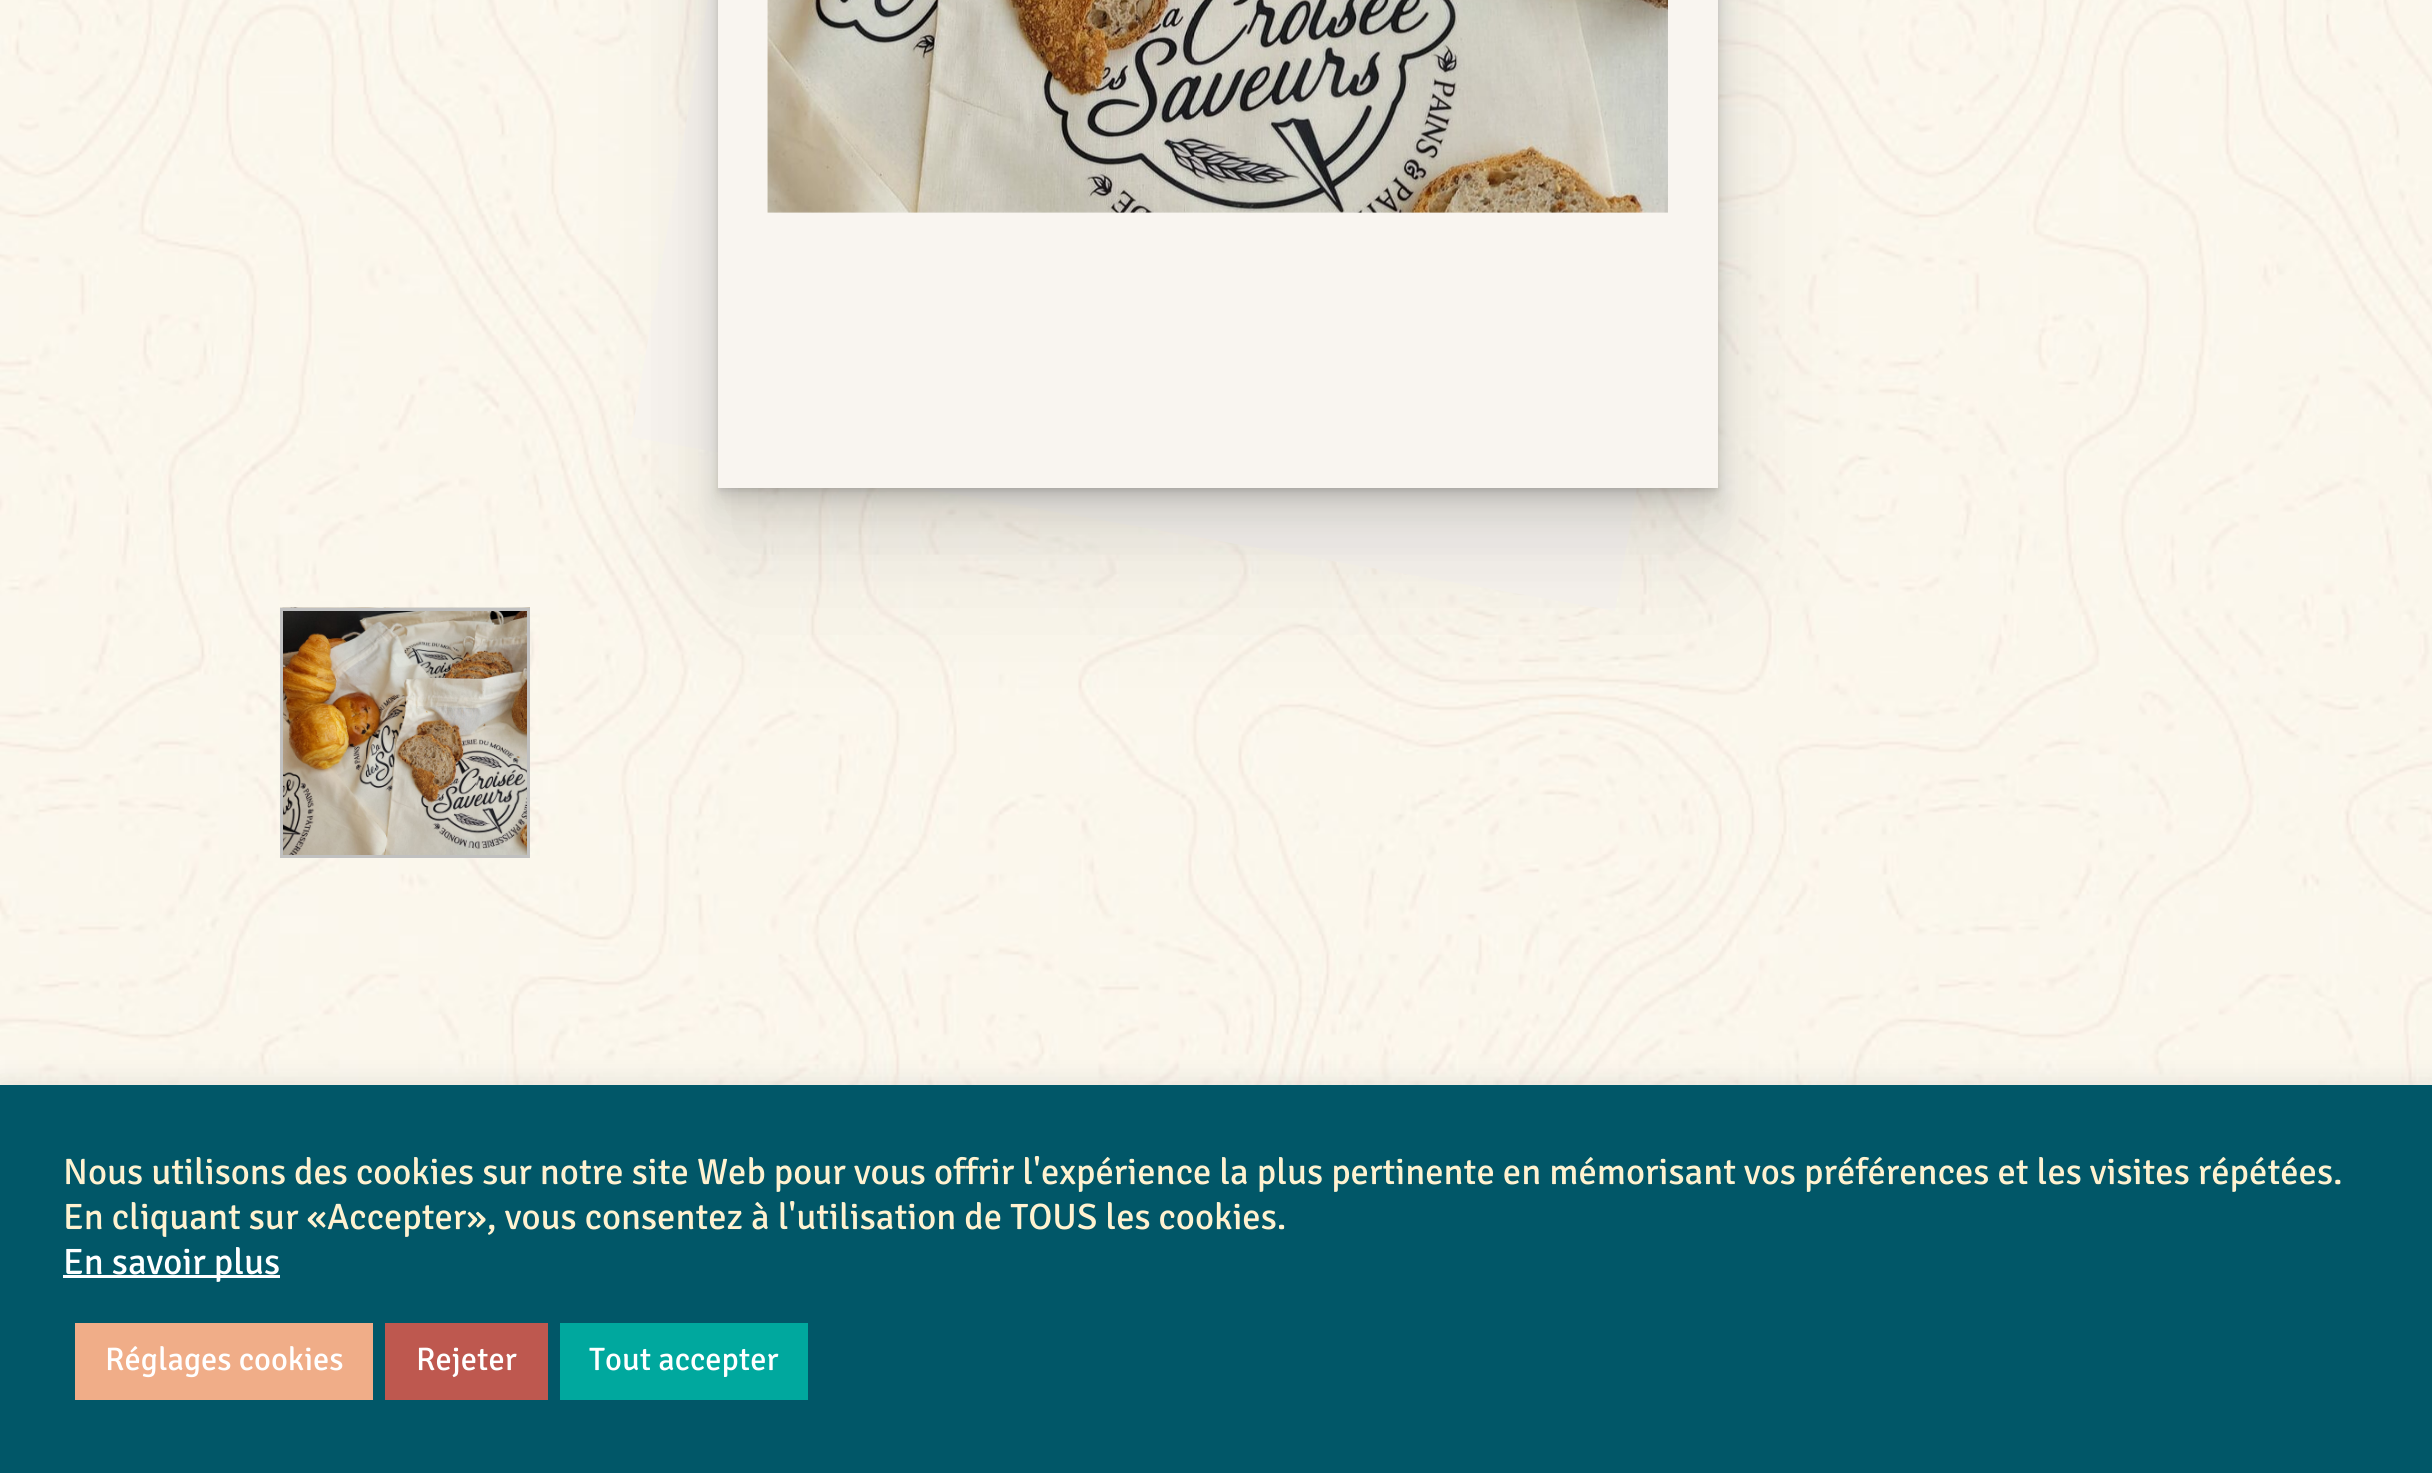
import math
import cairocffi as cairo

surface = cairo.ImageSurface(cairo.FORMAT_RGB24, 2432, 1473)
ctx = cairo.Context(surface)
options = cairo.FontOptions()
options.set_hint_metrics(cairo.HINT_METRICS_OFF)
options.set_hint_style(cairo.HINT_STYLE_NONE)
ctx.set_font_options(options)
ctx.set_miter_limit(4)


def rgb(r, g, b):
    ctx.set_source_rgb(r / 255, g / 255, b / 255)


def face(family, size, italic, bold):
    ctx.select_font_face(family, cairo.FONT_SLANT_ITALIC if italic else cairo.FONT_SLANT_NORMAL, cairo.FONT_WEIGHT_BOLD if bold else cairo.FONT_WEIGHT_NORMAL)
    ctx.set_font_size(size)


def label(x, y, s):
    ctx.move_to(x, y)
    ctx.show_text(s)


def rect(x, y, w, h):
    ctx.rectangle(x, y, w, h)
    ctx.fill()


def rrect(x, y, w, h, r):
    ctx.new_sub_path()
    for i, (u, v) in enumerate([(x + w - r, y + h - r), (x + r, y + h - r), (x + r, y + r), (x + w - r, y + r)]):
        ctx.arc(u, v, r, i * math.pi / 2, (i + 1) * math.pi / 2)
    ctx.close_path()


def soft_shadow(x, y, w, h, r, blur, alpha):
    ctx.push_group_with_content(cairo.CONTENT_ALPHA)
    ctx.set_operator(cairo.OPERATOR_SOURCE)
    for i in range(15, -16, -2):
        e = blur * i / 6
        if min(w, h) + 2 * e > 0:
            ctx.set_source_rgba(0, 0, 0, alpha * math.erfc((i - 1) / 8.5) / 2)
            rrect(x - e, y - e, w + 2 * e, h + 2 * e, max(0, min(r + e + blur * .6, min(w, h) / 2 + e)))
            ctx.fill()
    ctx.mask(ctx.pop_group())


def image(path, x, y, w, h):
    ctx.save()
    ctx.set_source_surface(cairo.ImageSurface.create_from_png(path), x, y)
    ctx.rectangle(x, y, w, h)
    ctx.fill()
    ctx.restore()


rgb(255, 255, 255)
ctx.paint()
image('image0.png', 0, 0, 2432, 1085)
image('image1.png', 280, 607, 250, 248)
ctx.rectangle(281.5, 609.5, 247, 247)
rgb(192, 192, 192)
ctx.set_line_width(3)
ctx.stroke()
rgb(249, 245, 240)
ctx.new_path()
ctx.move_to(817, -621)
ctx.line_to(1802, -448)
ctx.line_to(1615, 611)
ctx.line_to(631, 437)
ctx.close_path()
ctx.fill()
rgb(0, 0, 0)
soft_shadow(718, -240, 1000, 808, 0, 80, 0.07)
soft_shadow(718, -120, 1000, 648, 0, 40, 0.07)
soft_shadow(718, -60, 1000, 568, 0, 20, 0.07)
soft_shadow(718, -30, 1000, 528, 0, 10, 0.07)
soft_shadow(718, -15, 1000, 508, 0, 5, 0.07)
soft_shadow(718, -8, 1000, 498, 0, 2.5, 0.07)
rgb(249, 245, 240)
rect(718, 0, 1000, 488)
image('image2.png', 767, 0, 901, 213)
rgb(172, 171, 171)
soft_shadow(0, 1083, 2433, 390, 0, 12.5, 0.3)
rgb(1, 87, 104)
rect(0, 1085, 2432, 388)
face('Signika', 36.67, 0, 0)
rgb(255, 242, 208)
label(63, 1184, 'Nous utilisons des cookies sur notre site Web pour vous offrir l\'expérience la plus pertinente en mémorisant vos préférences et les visites répétées.')
label(63, 1229, 'En cliquant sur «Accepter», vous consentez à l\'utilisation de TOUS les cookies.')
rgb(255, 255, 255)
rect(63, 1275, 217, 3)
label(63, 1274, 'En savoir plus')
rgb(240, 173, 136)
rect(75, 1323, 298, 77)
face('Signika', 32.5, 0, 0)
rgb(255, 255, 255)
label(105, 1370, 'Réglages cookies')
rgb(190, 88, 79)
rect(385, 1323, 163, 77)
rgb(255, 255, 255)
label(416, 1370, 'Rejeter')
rgb(0, 168, 158)
rect(560, 1323, 248, 77)
rgb(255, 255, 255)
label(589, 1370, 'Tout accepter')
surface.write_to_png('render.png')
